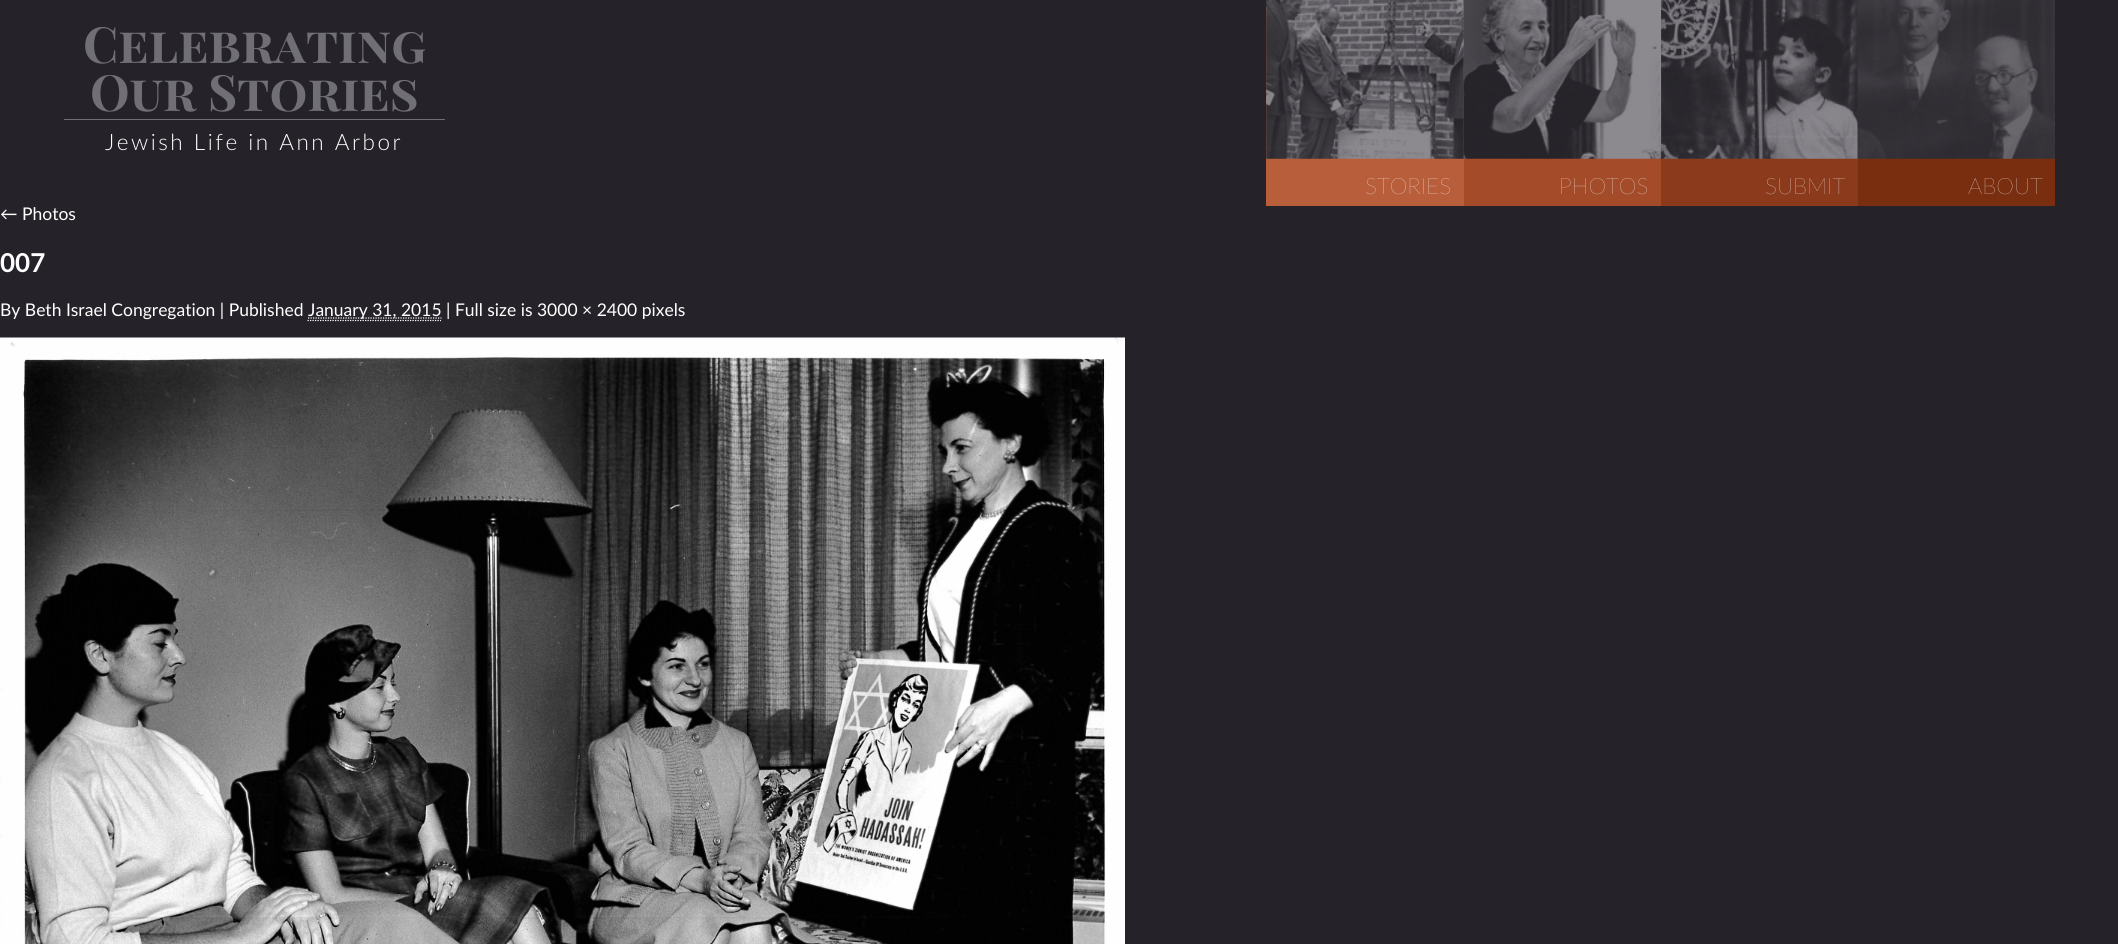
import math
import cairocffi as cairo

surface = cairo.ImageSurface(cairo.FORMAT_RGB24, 2118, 944)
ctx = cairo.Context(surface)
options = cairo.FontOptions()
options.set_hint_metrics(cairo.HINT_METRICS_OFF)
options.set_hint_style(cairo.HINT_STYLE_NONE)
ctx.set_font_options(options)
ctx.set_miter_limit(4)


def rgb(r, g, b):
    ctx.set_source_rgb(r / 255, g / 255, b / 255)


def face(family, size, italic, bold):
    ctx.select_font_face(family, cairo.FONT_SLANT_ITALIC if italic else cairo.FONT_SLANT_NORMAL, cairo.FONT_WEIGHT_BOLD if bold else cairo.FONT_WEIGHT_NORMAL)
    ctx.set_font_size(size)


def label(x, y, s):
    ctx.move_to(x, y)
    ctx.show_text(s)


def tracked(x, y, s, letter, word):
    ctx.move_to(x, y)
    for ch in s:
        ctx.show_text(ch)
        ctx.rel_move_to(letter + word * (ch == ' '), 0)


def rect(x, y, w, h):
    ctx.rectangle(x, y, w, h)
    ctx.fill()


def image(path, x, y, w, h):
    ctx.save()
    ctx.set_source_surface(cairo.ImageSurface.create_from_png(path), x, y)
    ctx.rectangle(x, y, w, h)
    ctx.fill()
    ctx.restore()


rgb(37, 35, 41)
ctx.paint()
rgb(113, 111, 118)
rect(64, 119, 381, 1)
face('Playfair Display SC', 50, 0, 1)
label(83, 63, 'Celebrating')
label(90, 111, 'Our Stories')
face('Lato Light', 22.5, 0, 0)
rgb(255, 255, 255)
tracked(105, 150, 'Jewish Life in Ann Arbor', 2.5, 0)
rgb(184, 94, 59)
rect(1266, 6, 198, 200)
image('image0.png', 1266, 0, 198, 159)
face('Lato ExtraLight', 22.5, 0, 0)
rgb(255, 255, 255)
label(1365, 194, 'STORIES')
rgb(164, 76, 42)
rect(1464, 158, 197, 48)
image('image1.png', 1463, 0, 199, 159)
rgb(255, 255, 255)
label(1559, 194, 'PHOTOS')
rgb(139, 59, 28)
rect(1661, 6, 197, 200)
image('image2.png', 1661, 0, 197, 159)
rgb(255, 255, 255)
label(1765, 194, 'SUBMIT')
rgb(122, 46, 16)
rect(1858, 158, 197, 48)
image('image3.png', 1857, 0, 198, 159)
rgb(255, 255, 255)
label(1968, 194, 'ABOUT')
face('Lato', 17.5, 0, 0)
label(0, 220, '← Photos')
face('Lato', 26, 0, 1)
label(0, 272, '007')
face('Lato', 17.5, 0, 0)
label(0, 316, 'By Beth Israel Congregation | Published')
ctx.new_path()
ctx.move_to(307.5, 320.5)
ctx.line_to(441, 320.5)
ctx.set_line_width(1.2)
ctx.set_dash([1.25, 1.25])
ctx.stroke()
ctx.new_path()
ctx.move_to(308, 318)
ctx.line_to(441.5, 318)
ctx.stroke()
label(308, 316, 'January 31, 2015 | Full size is 3000 × 2400 pixels')
image('image4.png', 0, 337, 1125, 607)
surface.write_to_png('render.png')
